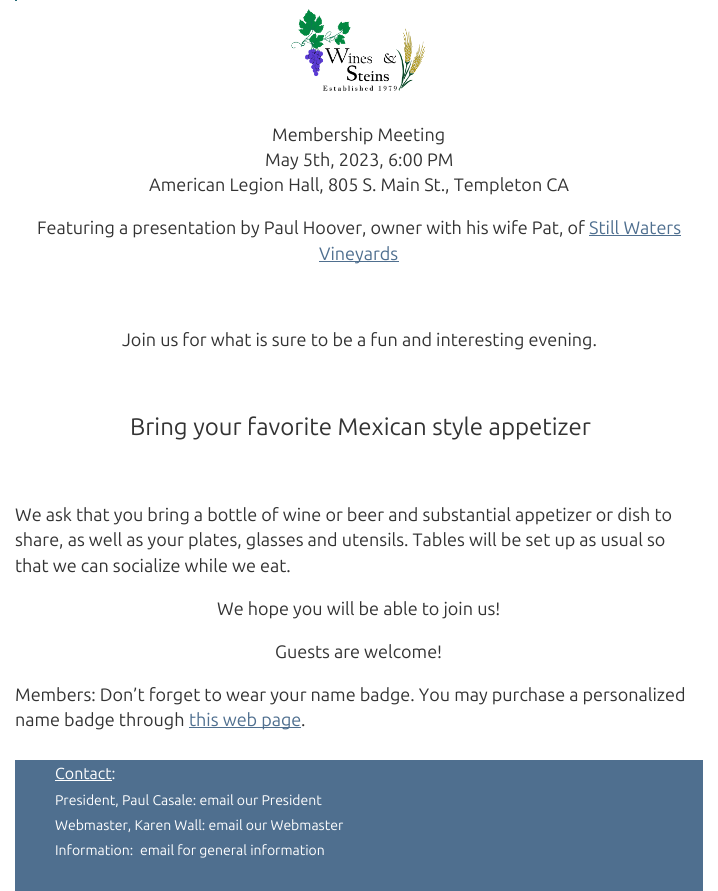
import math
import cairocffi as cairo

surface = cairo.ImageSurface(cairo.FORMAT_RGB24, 718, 891)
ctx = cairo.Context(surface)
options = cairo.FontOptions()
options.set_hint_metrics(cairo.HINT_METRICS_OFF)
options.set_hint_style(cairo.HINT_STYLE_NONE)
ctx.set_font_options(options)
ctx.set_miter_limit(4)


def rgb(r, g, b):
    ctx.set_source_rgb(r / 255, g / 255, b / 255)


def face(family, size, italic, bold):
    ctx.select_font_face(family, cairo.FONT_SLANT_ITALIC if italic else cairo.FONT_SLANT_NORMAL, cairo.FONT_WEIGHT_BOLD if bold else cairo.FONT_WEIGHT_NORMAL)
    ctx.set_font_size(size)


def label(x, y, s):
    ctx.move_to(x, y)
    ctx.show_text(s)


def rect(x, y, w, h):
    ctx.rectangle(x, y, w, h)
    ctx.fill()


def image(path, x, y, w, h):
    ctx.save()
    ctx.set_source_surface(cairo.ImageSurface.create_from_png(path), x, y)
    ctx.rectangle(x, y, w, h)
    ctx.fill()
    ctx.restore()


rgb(255, 255, 255)
ctx.paint()
rgb(38, 108, 120)
rect(15, 0, 2, 1)
image('image0.png', 291, 9, 135, 82)
face('Ubuntu', 18, 0, 0)
rgb(51, 51, 51)
label(272, 141, 'Membership Meeting')
label(265, 166, 'May 5th, 2023, 6:00 PM')
label(149, 191, 'American Legion Hall, 805 S. Main St., Templeton CA')
label(37, 234, 'Featuring a presentation by Paul Hoover, owner with his wife Pat, of')
rgb(79, 111, 143)
label(589, 234, 'Still Waters')
rect(589, 235, 92, 1)
rect(319, 261, 80, 1)
label(319, 260, 'Vineyards')
rgb(51, 51, 51)
label(122, 346, 'Join us for what is sure to be a fun and interesting evening.')
face('Ubuntu', 24, 0, 0)
label(130, 435, 'Bring your favorite Mexican style appetizer')
face('Ubuntu', 18, 0, 0)
label(15, 521, 'We ask that you bring a bottle of wine or beer and substantial appetizer or dish to')
label(15, 546, 'share, as well as your plates, glasses and utensils. Tables will be set up as usual so')
label(15, 572, 'that we can socialize while we eat.')
label(217, 615, 'We hope you will be able to join us!')
label(275, 658, 'Guests are welcome!')
label(15, 701, 'Members: Don’t forget to wear your name badge. You may purchase a personalized')
label(15, 726, 'name badge through')
rgb(79, 111, 143)
rect(189, 727, 112, 1)
label(189, 726, 'this web page')
rgb(51, 51, 51)
label(301, 726, '.')
rgb(79, 111, 143)
rect(15, 760, 688, 131)
face('Ubuntu', 16, 0, 0)
rgb(255, 255, 255)
label(55, 779, 'Contact:')
rect(55, 780, 57, 1)
face('Ubuntu', 14, 0, 0)
label(55, 805, 'President, Paul Casale: email our President')
label(55, 830, 'Webmaster, Karen Wall: email our Webmaster')
label(55, 855, 'Information:')
label(140, 855, 'email for general information')
surface.write_to_png('render.png')
